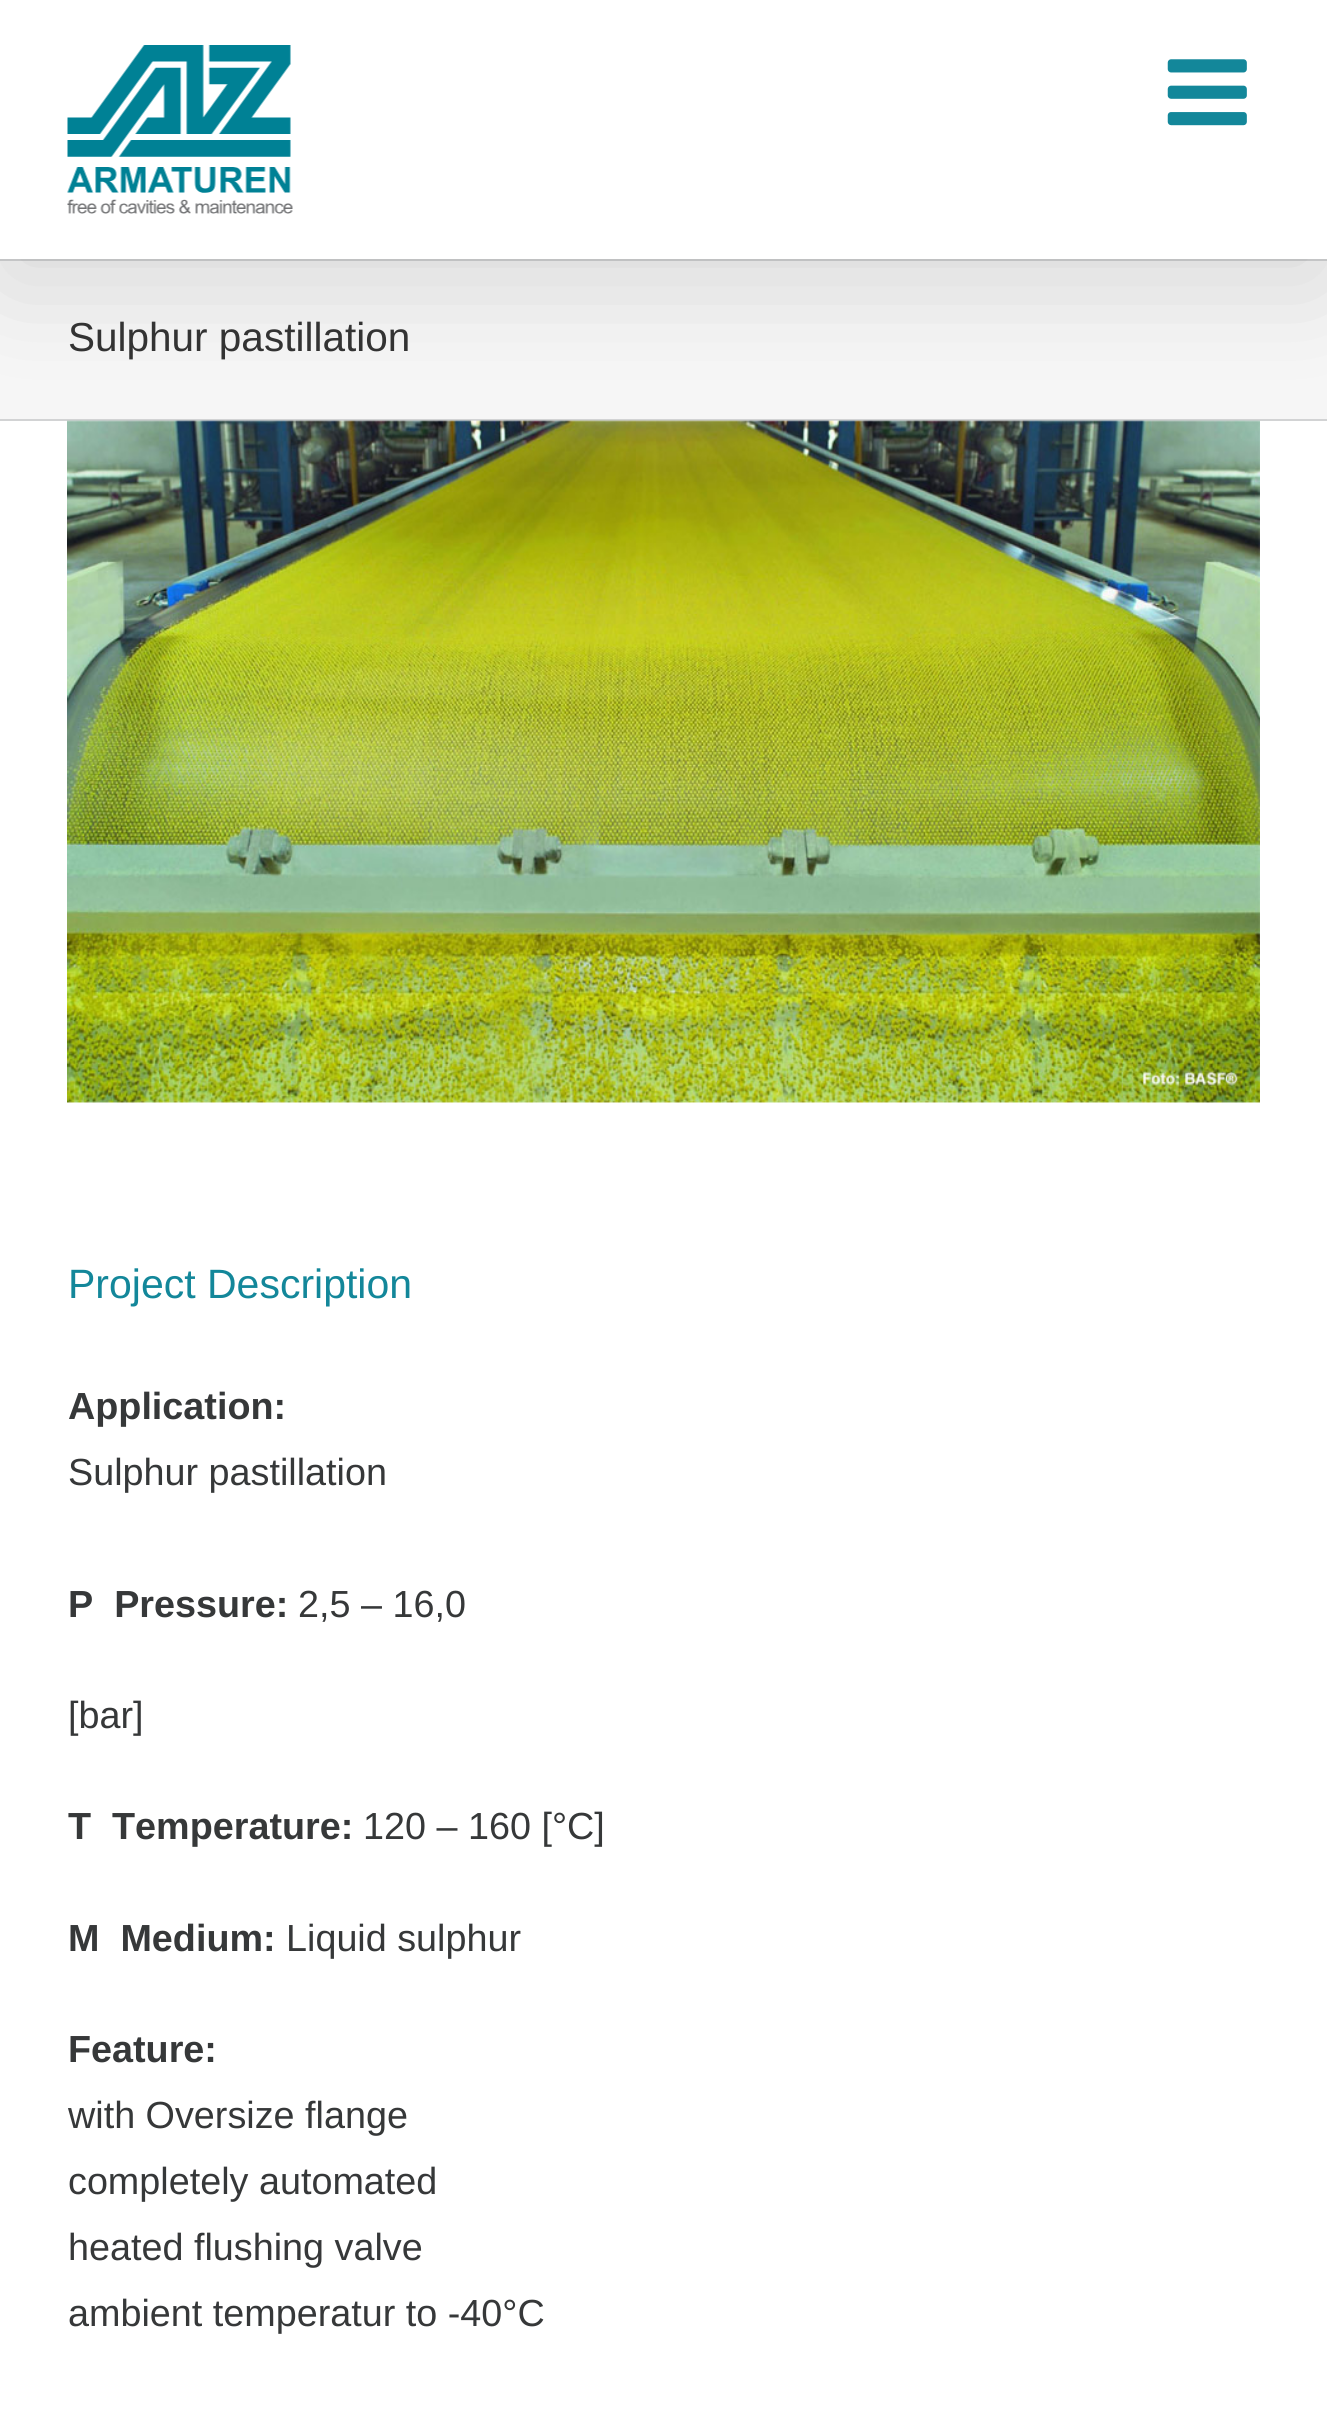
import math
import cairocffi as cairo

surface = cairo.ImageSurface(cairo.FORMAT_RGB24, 1327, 2423)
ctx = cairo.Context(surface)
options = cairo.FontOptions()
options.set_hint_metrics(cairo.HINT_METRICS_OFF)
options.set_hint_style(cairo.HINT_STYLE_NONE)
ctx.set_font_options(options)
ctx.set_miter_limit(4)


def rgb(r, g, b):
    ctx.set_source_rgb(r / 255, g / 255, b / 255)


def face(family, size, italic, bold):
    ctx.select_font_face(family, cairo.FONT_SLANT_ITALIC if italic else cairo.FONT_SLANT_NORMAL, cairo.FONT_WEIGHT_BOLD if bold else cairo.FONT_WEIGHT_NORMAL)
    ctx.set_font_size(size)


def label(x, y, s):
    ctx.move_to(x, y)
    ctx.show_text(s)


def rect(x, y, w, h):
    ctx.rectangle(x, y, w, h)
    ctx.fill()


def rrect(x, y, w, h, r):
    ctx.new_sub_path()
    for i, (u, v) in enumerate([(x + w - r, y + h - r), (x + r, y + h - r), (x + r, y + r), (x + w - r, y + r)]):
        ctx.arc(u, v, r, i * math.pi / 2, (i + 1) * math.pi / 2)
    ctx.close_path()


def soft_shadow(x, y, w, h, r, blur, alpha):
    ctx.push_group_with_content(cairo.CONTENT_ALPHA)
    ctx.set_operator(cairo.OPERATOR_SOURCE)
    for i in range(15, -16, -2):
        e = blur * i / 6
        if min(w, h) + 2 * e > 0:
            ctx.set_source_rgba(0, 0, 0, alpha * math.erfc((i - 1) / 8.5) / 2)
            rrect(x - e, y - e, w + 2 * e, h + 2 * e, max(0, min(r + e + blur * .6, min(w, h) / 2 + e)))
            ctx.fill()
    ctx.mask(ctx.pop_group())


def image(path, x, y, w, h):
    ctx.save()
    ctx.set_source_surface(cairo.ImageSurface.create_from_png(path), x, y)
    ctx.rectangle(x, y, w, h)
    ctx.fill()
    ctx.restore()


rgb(255, 255, 255)
ctx.paint()
rgb(246, 246, 246)
rect(0, 261, 1327, 158)
rgb(210, 211, 212)
rect(0, 259, 1327, 2)
rect(0, 419, 1327, 2)
image('image2.png', 67, 420, 1193, 683)
rgb(0, 0, 0)
soft_shadow(5, 27, 1318, 250, 0, 56, 0.14)
rgb(255, 255, 255)
rect(0, 0, 1327, 259)
image('image0.png', 67, 45, 226, 169)
image('image1.png', 1167, 59, 80, 67)
face('Liberation Sans', 40.5, 0, 0)
rgb(51, 51, 51)
label(68, 351, 'Sulphur pastillation')
face('Liberation Sans', 41, 0, 0)
rgb(19, 135, 154)
label(68, 1298, 'Project Description')
face('Liberation Sans', 37.75, 0, 1)
rgb(54, 56, 57)
label(68, 1419, 'Application:')
face('Liberation Sans', 37.75, 0, 0)
label(68, 1485, 'Sulphur pastillation')
face('Liberation Sans', 37.75, 0, 1)
label(68, 1617, 'P  Pressure:')
face('Liberation Sans', 37.75, 0, 0)
label(298, 1617, '2,5 – 16,0')
label(68, 1728, '[bar]')
face('Liberation Sans', 37.75, 0, 1)
label(68, 1839, 'T  Temperature:')
face('Liberation Sans', 37.75, 0, 0)
label(363, 1839, '120 – 160 [°C]')
face('Liberation Sans', 37.75, 0, 1)
label(68, 1951, 'M  Medium:')
face('Liberation Sans', 37.75, 0, 0)
label(286, 1951, 'Liquid sulphur')
face('Liberation Sans', 37.75, 0, 1)
label(68, 2062, 'Feature:')
face('Liberation Sans', 37.75, 0, 0)
label(68, 2128, 'with Oversize flange')
label(68, 2194, 'completely automated')
label(68, 2260, 'heated flushing valve')
label(68, 2326, 'ambient temperatur to -40°C')
surface.write_to_png('render.png')
